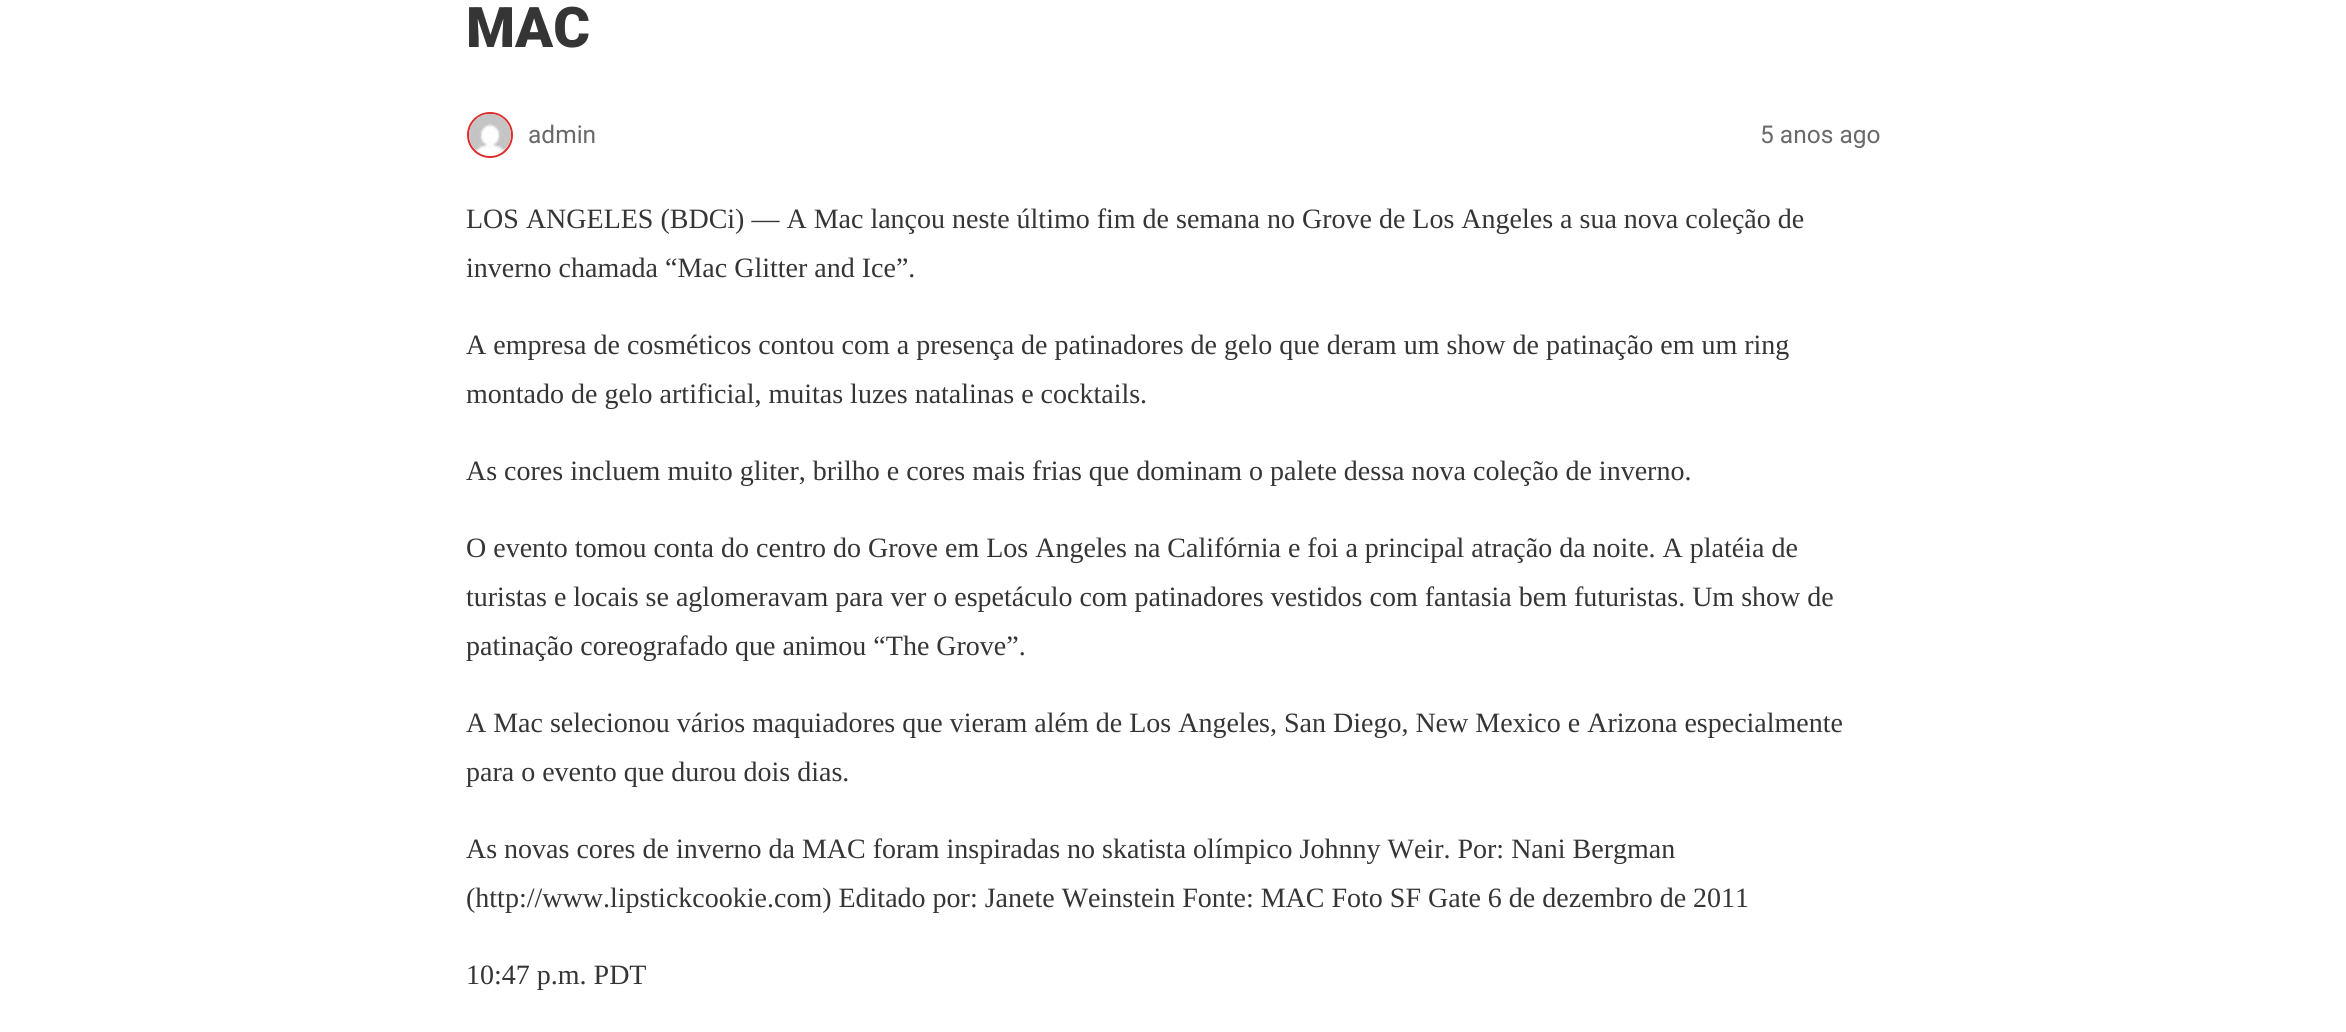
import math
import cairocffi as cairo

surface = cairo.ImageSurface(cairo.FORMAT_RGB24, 2346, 1032)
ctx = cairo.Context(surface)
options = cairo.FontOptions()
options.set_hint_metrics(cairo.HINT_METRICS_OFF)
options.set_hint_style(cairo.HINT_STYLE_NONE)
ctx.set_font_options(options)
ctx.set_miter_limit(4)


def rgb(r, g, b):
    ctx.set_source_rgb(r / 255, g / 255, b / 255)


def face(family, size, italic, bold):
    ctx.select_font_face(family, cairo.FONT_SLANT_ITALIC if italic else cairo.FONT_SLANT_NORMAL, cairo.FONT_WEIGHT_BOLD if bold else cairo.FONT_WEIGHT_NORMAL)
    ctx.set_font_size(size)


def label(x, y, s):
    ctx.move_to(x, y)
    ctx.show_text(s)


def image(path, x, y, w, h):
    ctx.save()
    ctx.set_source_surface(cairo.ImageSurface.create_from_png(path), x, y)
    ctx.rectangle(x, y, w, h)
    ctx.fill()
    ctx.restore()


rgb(255, 255, 255)
ctx.paint()
face('Roboto Black', 56, 0, 0)
rgb(53, 53, 53)
label(466, 47, 'MAC')
ctx.new_path()
ctx.arc(490, 135, 22, 0, 2 * math.pi)
rgb(225, 43, 43)
ctx.stroke()
image('image0.png', 469, 113, 42, 43)
face('Roboto', 24.5, 0, 0)
rgb(105, 105, 105)
label(528, 143, 'admin')
label(1760, 143, '5 anos ago')
face('Liberation Serif', 28, 0, 0)
rgb(53, 53, 53)
label(466, 228, 'LOS ANGELES (BDCi) — A Mac lançou neste último fim de semana no Grove de Los Angeles a sua nova coleção de')
label(466, 277, 'inverno chamada “Mac Glitter and Ice”.')
label(466, 354, 'A empresa de cosméticos contou com a presença de patinadores de gelo que deram um show de patinação em um ring')
label(466, 403, 'montado de gelo artificial, muitas luzes natalinas e cocktails.')
label(466, 480, 'As cores incluem muito gliter, brilho e cores mais frias que dominam o palete dessa nova coleção de inverno.')
label(466, 557, 'O evento tomou conta do centro do Grove em Los Angeles na Califórnia e foi a principal atração da noite. A platéia de')
label(466, 606, 'turistas e locais se aglomeravam para ver o espetáculo com patinadores vestidos com fantasia bem futuristas. Um show de')
label(466, 655, 'patinação coreografado que animou “The Grove”.')
label(466, 732, 'A Mac selecionou vários maquiadores que vieram além de Los Angeles, San Diego, New Mexico e Arizona especialmente')
label(466, 781, 'para o evento que durou dois dias.')
label(466, 858, 'As novas cores de inverno da MAC foram inspiradas no skatista olímpico Johnny Weir. Por: Nani Bergman')
label(466, 907, '(http://www.lipstickcookie.com) Editado por: Janete Weinstein Fonte: MAC Foto SF Gate 6 de dezembro de 2011')
label(466, 984, '10:47 p.m. PDT')
surface.write_to_png('render.png')
